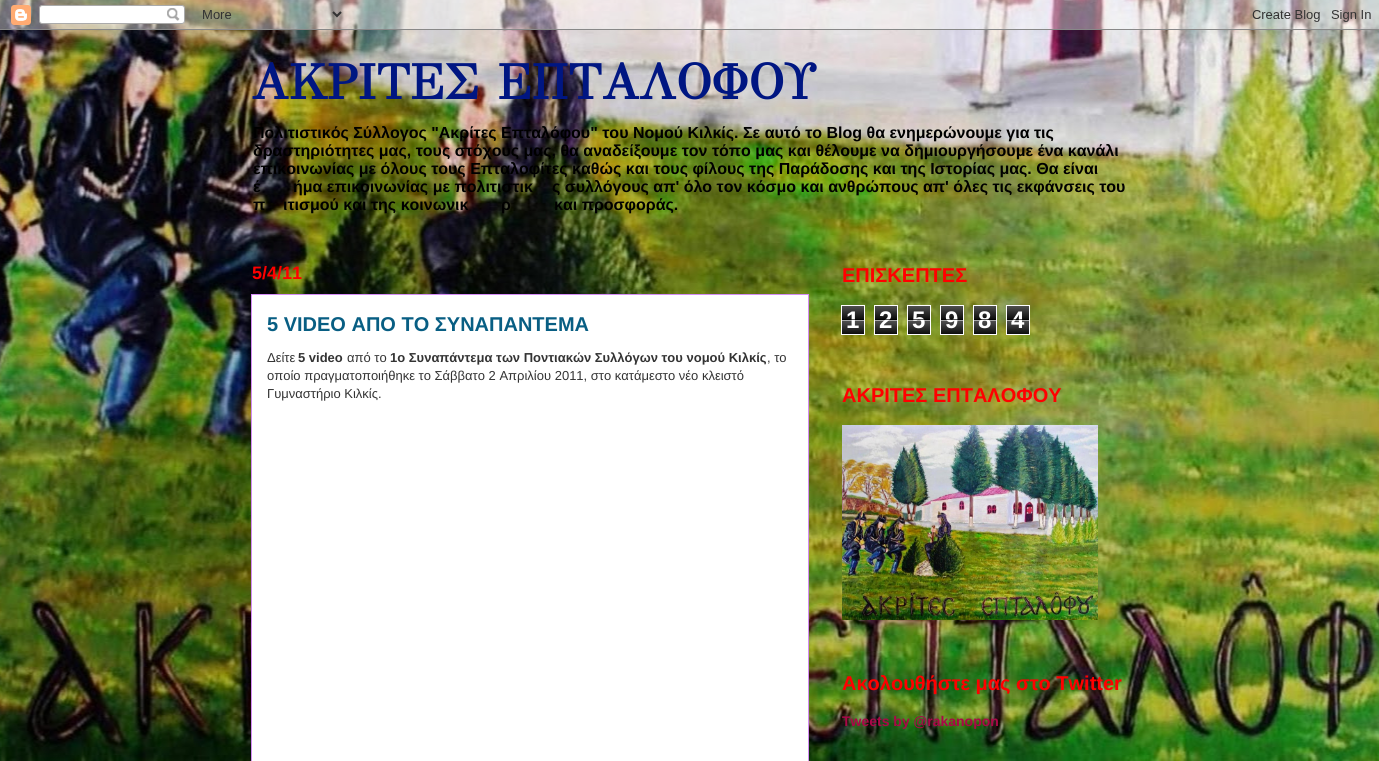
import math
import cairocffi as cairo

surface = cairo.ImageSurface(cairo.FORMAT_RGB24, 1379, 761)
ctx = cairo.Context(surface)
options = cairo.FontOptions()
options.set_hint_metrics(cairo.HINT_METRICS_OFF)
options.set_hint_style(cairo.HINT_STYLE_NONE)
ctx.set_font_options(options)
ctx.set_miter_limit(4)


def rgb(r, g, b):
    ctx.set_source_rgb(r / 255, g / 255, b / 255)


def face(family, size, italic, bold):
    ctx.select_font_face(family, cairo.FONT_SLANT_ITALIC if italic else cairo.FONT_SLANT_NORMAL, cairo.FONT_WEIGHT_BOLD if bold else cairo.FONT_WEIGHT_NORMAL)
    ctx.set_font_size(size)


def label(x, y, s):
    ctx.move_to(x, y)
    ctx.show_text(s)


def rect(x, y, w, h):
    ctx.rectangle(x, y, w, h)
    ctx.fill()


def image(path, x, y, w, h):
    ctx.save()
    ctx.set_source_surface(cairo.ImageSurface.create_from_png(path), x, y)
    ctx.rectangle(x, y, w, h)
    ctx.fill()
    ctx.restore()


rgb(255, 255, 255)
ctx.paint()
image('image0.png', 0, 0, 1379, 761)
image('image1.png', 0, 0, 1379, 30)
face('GFS Didot', 50, 0, 1)
rgb(0, 22, 130)
label(251, 99, 'ΑΚΡΙΤΕΣ ΕΠΤΑΛΟΦΟΥ')
face('Liberation Sans', 16, 0, 1)
rgb(0, 0, 0)
label(253, 138, 'Πολιτιστικός Σύλλογος "Ακρίτες Επταλόφου" του Νομού Κιλκίς. Σε αυτό το Blog θα ενημερώνουμε για τις')
label(253, 156, 'δραστηριότητες μας, τους στόχους μας, θα αναδείξουμε τον τόπο μας και θέλουμε να δημιουργήσουμε ένα κανάλι')
label(253, 174, 'επικοινωνίας με όλους τους Επταλοφίτες καθώς και τους φίλους της Παράδοσης και της Ιστορίας μας. Θα είναι')
label(253, 192, 'έ')
label(293, 192, 'ήμα επικοινωνίας με πολιτιστικ')
label(552, 192, 'ς συλλόγους απ\' όλο τον κόσμο και ανθρώπους απ\' όλες τις εκφάνσεις του')
label(253, 210, 'π')
label(283, 210, 'ιτισμού και της κοινωνικ')
label(501, 210, 'ρ')
label(554, 210, 'και προσφοράς.')
rgb(255, 255, 255)
ctx.rectangle(251.5, 294.5, 557, 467)
ctx.fill_preserve()
rgb(211, 140, 245)
ctx.set_line_width(1)
ctx.stroke()
face('Liberation Sans', 18, 0, 1)
rgb(255, 0, 0)
label(252, 279, '5/4/11')
face('Liberation Sans', 20, 0, 1)
rgb(8, 94, 131)
label(267, 331, '5 VIDEO ΑΠΟ ΤΟ ΣΥΝΑΠΑΝΤΕΜΑ')
face('Liberation Sans', 13, 0, 0)
rgb(51, 51, 51)
label(267, 362, 'Δείτε')
face('Liberation Sans', 13, 0, 1)
label(298, 362, '5 video')
face('Liberation Sans', 13, 0, 0)
label(347, 362, 'από το')
face('Liberation Sans', 13, 0, 1)
label(390, 362, '1ο Συναπάντεμα των Ποντιακών Συλλόγων του νομού Κιλκίς')
face('Liberation Sans', 13, 0, 0)
label(767, 362, ', το')
label(267, 380, 'οποίο πραγματοποιήθηκε το Σάββατο 2 Απριλίου 2011, στο κατάμεστο νέο κλειστό')
label(267, 398, 'Γυμναστήριο Κιλκίς.')
face('Liberation Sans', 20, 0, 1)
rgb(255, 0, 0)
label(842, 282, 'ΕΠΙΣΚΕΠΤΕΣ')
image('image2.png', 842, 306, 22, 28)
ctx.rectangle(841.5, 305.5, 23, 29)
rgb(255, 255, 255)
ctx.stroke()
face('Liberation Sans', 24, 0, 1)
label(846, 328, '1')
ctx.set_source_rgba(0, 0, 0, 0.65)
rect(842, 319, 22, 1)
ctx.set_source_rgba(1, 1, 1, 0.65)
rect(842, 320, 22, 1)
image('image2.png', 875, 306, 22, 28)
ctx.rectangle(874.5, 305.5, 23, 29)
rgb(255, 255, 255)
ctx.stroke()
label(879, 328, '2')
ctx.set_source_rgba(0, 0, 0, 0.65)
rect(875, 319, 22, 1)
ctx.set_source_rgba(1, 1, 1, 0.65)
rect(875, 320, 22, 1)
image('image2.png', 908, 306, 22, 28)
ctx.rectangle(907.5, 305.5, 23, 29)
rgb(255, 255, 255)
ctx.stroke()
label(912, 328, '5')
ctx.set_source_rgba(0, 0, 0, 0.65)
rect(908, 319, 22, 1)
ctx.set_source_rgba(1, 1, 1, 0.65)
rect(908, 320, 22, 1)
image('image2.png', 941, 306, 22, 28)
ctx.rectangle(940.5, 305.5, 23, 29)
rgb(255, 255, 255)
ctx.stroke()
label(945, 328, '9')
ctx.set_source_rgba(0, 0, 0, 0.65)
rect(941, 319, 22, 1)
ctx.set_source_rgba(1, 1, 1, 0.65)
rect(941, 320, 22, 1)
image('image2.png', 974, 306, 22, 28)
ctx.rectangle(973.5, 305.5, 23, 29)
rgb(255, 255, 255)
ctx.stroke()
label(978, 328, '8')
ctx.set_source_rgba(0, 0, 0, 0.65)
rect(974, 319, 22, 1)
ctx.set_source_rgba(1, 1, 1, 0.65)
rect(974, 320, 22, 1)
image('image2.png', 1007, 306, 22, 28)
ctx.rectangle(1006.5, 305.5, 23, 29)
rgb(255, 255, 255)
ctx.stroke()
label(1011, 328, '4')
ctx.set_source_rgba(0, 0, 0, 0.65)
rect(1007, 319, 22, 1)
ctx.set_source_rgba(1, 1, 1, 0.65)
rect(1007, 320, 22, 1)
face('Liberation Sans', 20, 0, 1)
rgb(255, 0, 0)
label(842, 402, 'ΑΚΡΙΤΕΣ ΕΠΤΑΛΟΦΟΥ')
image('image3.png', 842, 425, 256, 195)
label(842, 690, 'Ακολουθήστε μας στο Twitter')
face('Liberation Sans', 14, 0, 1)
rgb(170, 7, 72)
label(842, 726, 'Tweets by @rakanopon')
surface.write_to_png('render.png')
